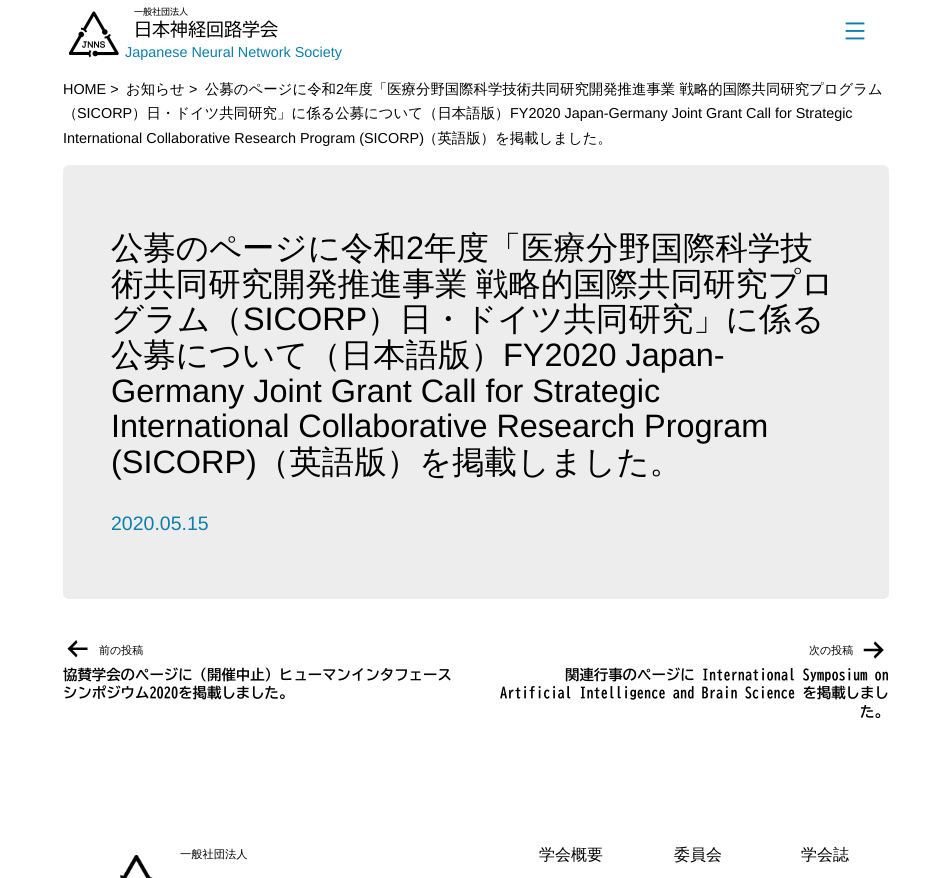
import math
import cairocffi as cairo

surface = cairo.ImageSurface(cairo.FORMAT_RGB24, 951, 878)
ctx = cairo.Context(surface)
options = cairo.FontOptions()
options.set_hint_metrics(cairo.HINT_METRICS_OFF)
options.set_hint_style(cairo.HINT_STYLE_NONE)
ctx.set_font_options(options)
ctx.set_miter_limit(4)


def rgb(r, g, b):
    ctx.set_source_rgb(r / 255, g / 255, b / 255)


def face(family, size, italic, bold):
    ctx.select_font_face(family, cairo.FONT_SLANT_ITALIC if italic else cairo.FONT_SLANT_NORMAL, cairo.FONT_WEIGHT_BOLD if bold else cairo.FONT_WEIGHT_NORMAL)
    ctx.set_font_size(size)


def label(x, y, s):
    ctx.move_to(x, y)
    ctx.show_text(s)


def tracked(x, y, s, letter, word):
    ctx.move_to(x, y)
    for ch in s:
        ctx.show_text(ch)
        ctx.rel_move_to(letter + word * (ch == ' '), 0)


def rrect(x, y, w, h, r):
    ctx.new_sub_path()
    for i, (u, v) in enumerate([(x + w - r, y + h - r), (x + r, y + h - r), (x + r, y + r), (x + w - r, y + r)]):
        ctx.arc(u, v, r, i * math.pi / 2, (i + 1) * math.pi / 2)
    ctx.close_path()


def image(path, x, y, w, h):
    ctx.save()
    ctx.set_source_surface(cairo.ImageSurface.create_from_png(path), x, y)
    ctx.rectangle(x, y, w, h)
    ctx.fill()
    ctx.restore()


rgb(255, 255, 255)
ctx.paint()
image('image0.png', 69, 11, 50, 47)
face('BIZ UDGothic', 9, 0, 0)
rgb(0, 0, 0)
label(134, 15, '一般社団法人')
face('BIZ UDGothic', 18, 0, 0)
label(134, 36, '日本神経回路学会')
face('Liberation Sans', 14.4, 0, 0)
rgb(11, 126, 171)
label(125, 57, 'Japanese Neural Network Society')
image('image1.png', 845, 22, 20, 18)
rgb(0, 0, 0)
label(63, 94, 'HOME >')
face('WenQuanYi Zen Hei Medium', 14.4, 0, 0)
label(126, 94, 'お知らせ')
face('Liberation Sans', 14.4, 0, 0)
label(189, 94, '>')
face('WenQuanYi Zen Hei Medium', 14.4, 0, 0)
label(205, 94, '公募のページに令和')
face('Liberation Sans', 14.4, 0, 0)
label(336, 94, '2')
face('WenQuanYi Zen Hei Medium', 14.4, 0, 0)
label(344, 94, '年度「医療分野国際科学技術共同研究開発推進事業 戦略的国際共同研究プログラム')
label(63, 118, '（')
face('Liberation Sans', 14.4, 0, 0)
label(77, 118, 'SICORP')
face('WenQuanYi Zen Hei Medium', 14.4, 0, 0)
label(132, 118, '）日・ドイツ共同研究」に係る公募について（日本語版）')
face('Liberation Sans', 14.4, 0, 0)
label(510, 118, 'FY2020 Japan-Germany Joint Grant Call for Strategic')
label(63, 143, 'International Collaborative Research Program (SICORP)')
face('WenQuanYi Zen Hei Medium', 14.4, 0, 0)
label(423, 143, '（英語版）を掲載しました。')
rgb(237, 237, 237)
rrect(63, 165, 826, 434, 6)
ctx.fill()
face('WenQuanYi Zen Hei Medium', 32.4, 0, 0)
rgb(0, 0, 0)
label(111, 259, '公募のページに令和')
face('Liberation Sans', 32.4, 0, 0)
label(406, 259, '2')
face('WenQuanYi Zen Hei Medium', 32.4, 0, 0)
label(424, 259, '年度「医療分野国際科学技')
tracked(111, 295, '術共同研究開発推進事業 戦略的国際共同研究プロ', 0, -1)
label(111, 330, 'グラム（')
face('Liberation Sans', 32.4, 0, 0)
label(243, 330, 'SICORP')
face('WenQuanYi Zen Hei Medium', 32.4, 0, 0)
label(367, 330, '）日・ドイツ共同研究」に係る')
label(111, 366, '公募について（日本語版）')
face('Liberation Sans', 32.4, 0, 0)
label(503, 366, 'FY2020 Japan-')
label(111, 402, 'Germany Joint Grant Call for Strategic')
label(111, 437, 'International Collaborative Research Program')
label(111, 473, '(SICORP)')
face('WenQuanYi Zen Hei Medium', 32.4, 0, 0)
label(257, 473, '（英語版）を掲載しました。')
face('Liberation Sans', 19.5, 0, 0)
rgb(11, 126, 171)
label(111, 530, '2020.05.15')
image('image2.png', 67, 640, 21, 18)
face('WenQuanYi Zen Hei Medium', 11, 0, 0)
rgb(0, 0, 0)
label(99, 654, '前の投稿')
face('BIZ UDGothic', 14.4, 0, 1)
label(63, 680, '協賛学会のページに（開催中止）ヒューマンインタフェース')
label(63, 698, 'シンポジウム2020を掲載しました。')
face('WenQuanYi Zen Hei Medium', 11, 0, 0)
label(809, 654, '次の投稿')
image('image3.png', 863, 641, 21, 18)
face('BIZ UDGothic', 14.4, 0, 1)
label(565, 680, '関連行事のページに International Symposium on')
label(500, 698, 'Artificial Intelligence and Brain Science を掲載しまし')
label(860, 717, 'た。')
image('image4.png', 120, 855, 33, 23)
face('WenQuanYi Zen Hei Medium', 11.25, 0, 0)
label(180, 858, '一般社団法人')
face('WenQuanYi Zen Hei Medium', 16, 0, 0)
label(539, 860, '学会概要')
label(674, 860, '委員会')
label(801, 860, '学会誌')
surface.write_to_png('render.png')
